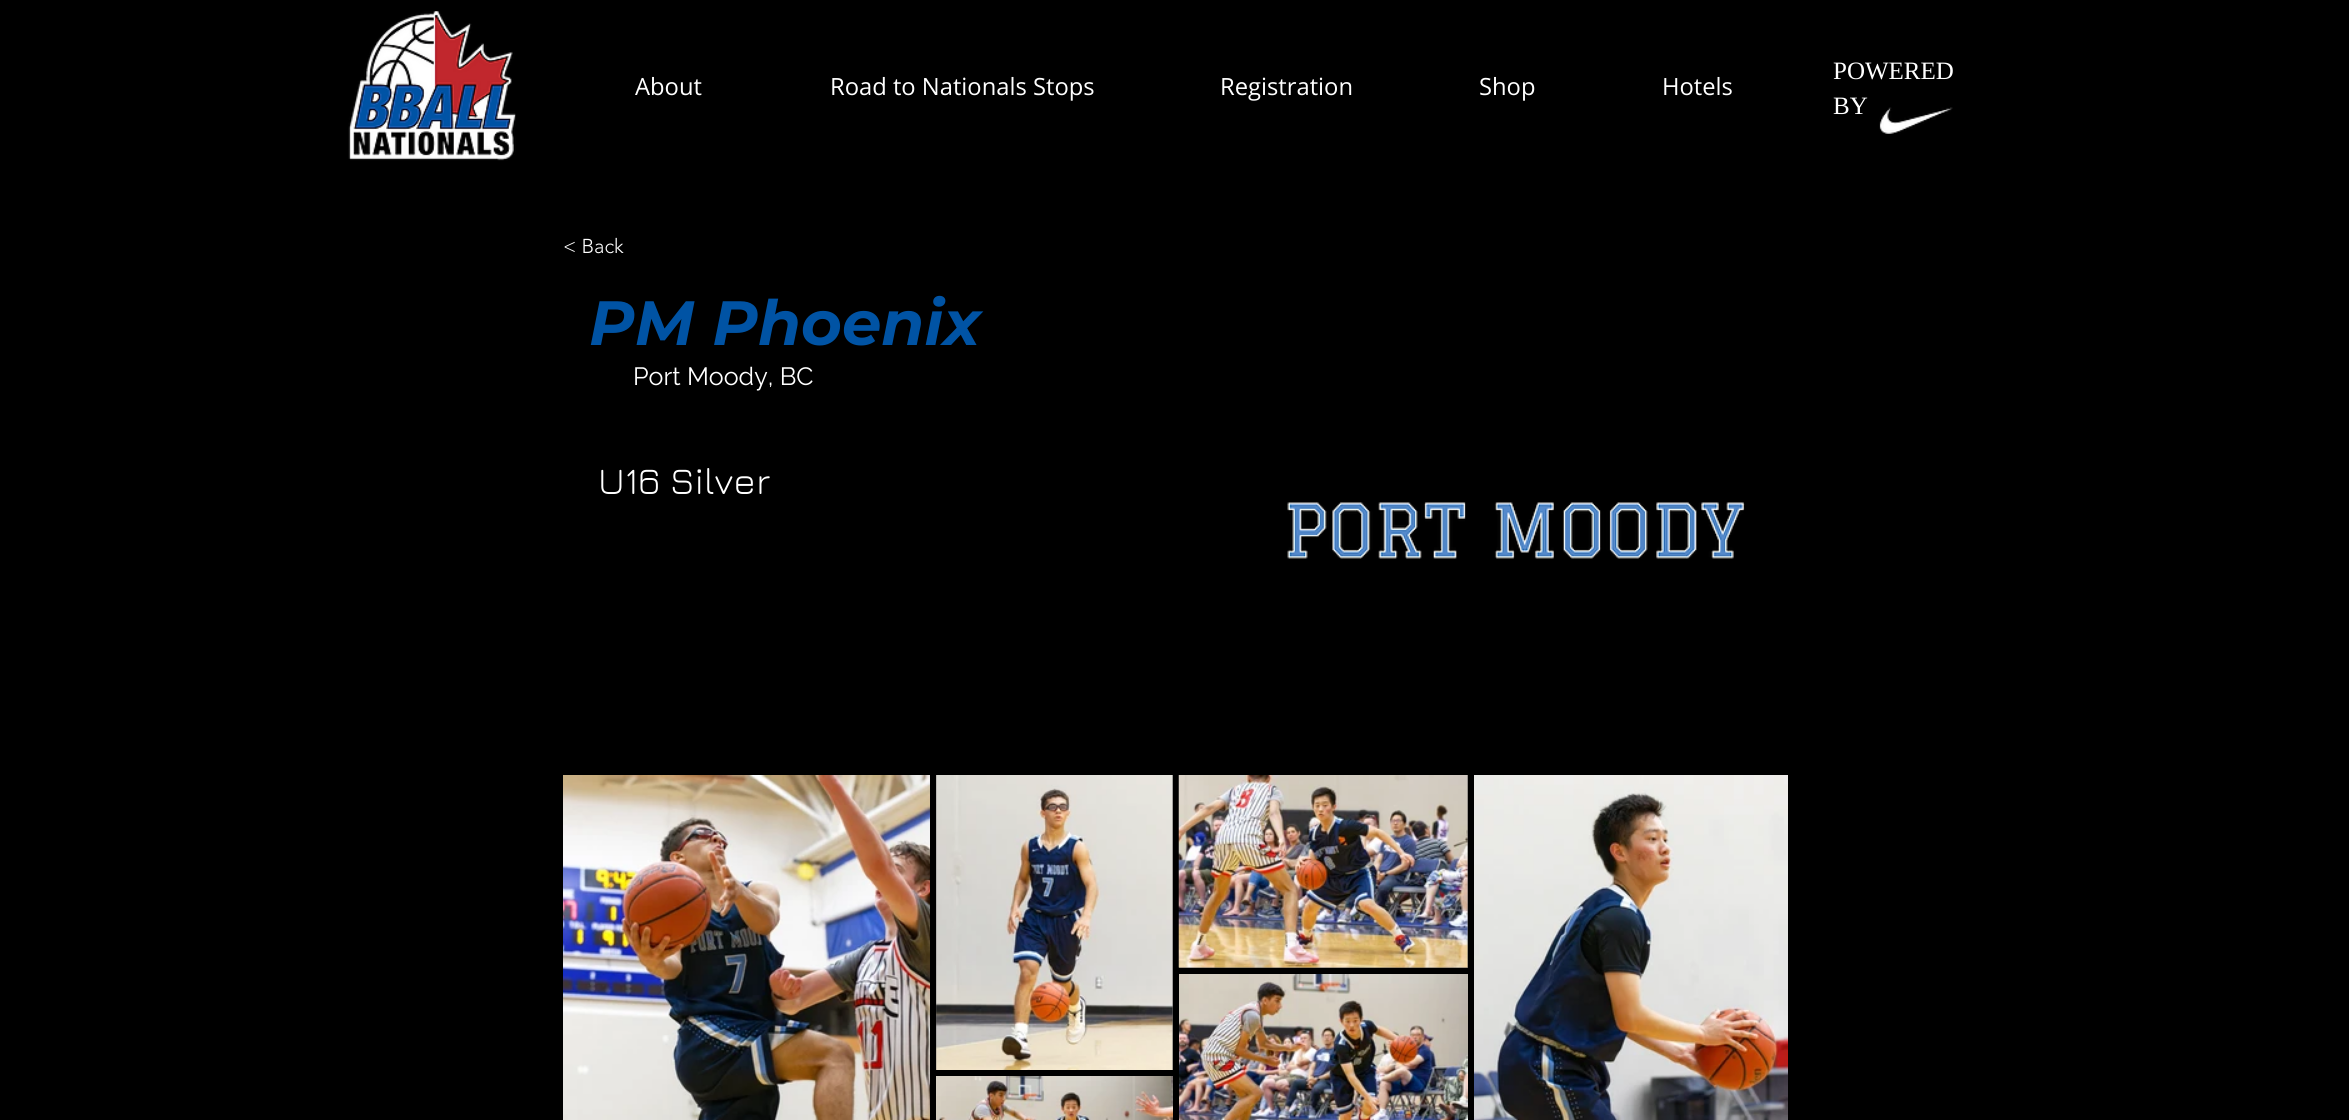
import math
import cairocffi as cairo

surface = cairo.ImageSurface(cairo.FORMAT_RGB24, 2349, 1120)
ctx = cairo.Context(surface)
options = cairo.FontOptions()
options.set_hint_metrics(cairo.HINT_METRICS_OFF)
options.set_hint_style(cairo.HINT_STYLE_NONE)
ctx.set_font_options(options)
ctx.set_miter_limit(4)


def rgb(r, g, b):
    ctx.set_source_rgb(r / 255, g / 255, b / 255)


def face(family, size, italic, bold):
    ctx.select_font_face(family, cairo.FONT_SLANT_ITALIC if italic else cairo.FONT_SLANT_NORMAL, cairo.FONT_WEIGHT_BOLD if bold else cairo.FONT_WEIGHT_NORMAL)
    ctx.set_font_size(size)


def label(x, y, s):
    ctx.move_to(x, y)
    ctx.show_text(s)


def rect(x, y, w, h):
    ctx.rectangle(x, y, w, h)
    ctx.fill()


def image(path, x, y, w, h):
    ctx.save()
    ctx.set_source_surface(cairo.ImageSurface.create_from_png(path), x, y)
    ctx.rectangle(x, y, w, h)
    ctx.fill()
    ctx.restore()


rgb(0, 0, 0)
ctx.paint()
image('image0.png', 348, 11, 168, 150)
face('Open Sans', 23.75, 0, 0)
rgb(255, 255, 255)
label(635, 95, 'About')
label(830, 95, 'Road to Nationals Stops')
label(1220, 95, 'Registration')
label(1479, 95, 'Shop')
label(1662, 95, 'Hotels')
face('Liberation Serif', 25, 0, 0)
label(1833, 79, 'POWERED')
label(1833, 114, 'BY')
image('image1.png', 1879, 107, 74, 27)
face('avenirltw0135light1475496 Light', 20, 0, 0)
label(563, 253, '< Back')
face('Montserrat', 62.5, 1, 1)
rgb(0, 83, 164)
label(589, 345, 'PM Phoenix')
face('Raleway', 25, 0, 0)
rgb(255, 255, 255)
label(633, 385, 'Port Moody, BC')
face('Jura', 37.5, 0, 0)
label(598, 494, 'U16 Silver')
image('image2.png', 1287, 502, 458, 57)
image('image3.png', 563, 775, 367, 345)
rgb(96, 94, 94)
rect(936, 775, 237, 295)
image('image4.png', 936, 775, 237, 295)
rect(1179, 775, 289, 193)
image('image5.png', 1178, 775, 290, 193)
image('image6.png', 1474, 775, 314, 345)
image('image7.png', 936, 1076, 237, 44)
image('image8.png', 1179, 974, 289, 146)
surface.write_to_png('render.png')
